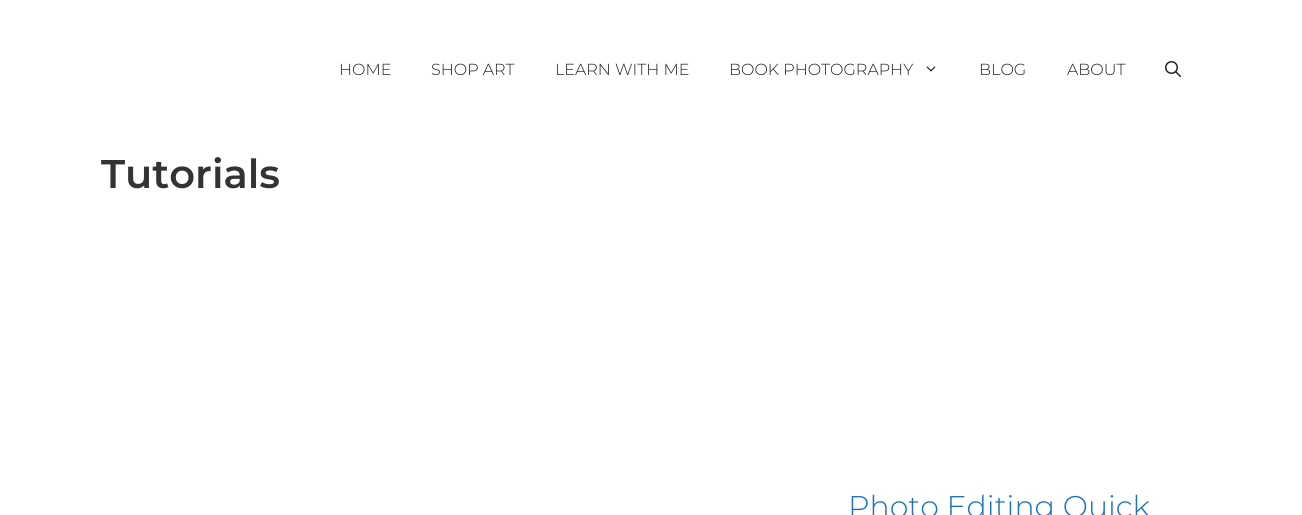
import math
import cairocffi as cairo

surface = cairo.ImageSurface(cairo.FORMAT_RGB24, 1302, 515)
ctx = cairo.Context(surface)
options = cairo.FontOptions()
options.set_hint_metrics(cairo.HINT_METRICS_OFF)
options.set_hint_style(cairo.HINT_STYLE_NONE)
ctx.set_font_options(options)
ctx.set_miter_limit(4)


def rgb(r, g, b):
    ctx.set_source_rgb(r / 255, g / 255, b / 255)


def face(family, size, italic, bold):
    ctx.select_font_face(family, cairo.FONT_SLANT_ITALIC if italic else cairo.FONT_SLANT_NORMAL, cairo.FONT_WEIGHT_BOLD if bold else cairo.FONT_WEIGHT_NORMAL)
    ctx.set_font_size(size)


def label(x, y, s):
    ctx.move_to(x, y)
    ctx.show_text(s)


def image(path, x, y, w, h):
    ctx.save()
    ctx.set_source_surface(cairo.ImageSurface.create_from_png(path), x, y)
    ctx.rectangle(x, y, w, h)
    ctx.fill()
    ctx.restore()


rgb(255, 255, 255)
ctx.paint()
face('Montserrat Light', 16, 0, 0)
rgb(34, 34, 34)
label(339, 75, 'HOME')
label(431, 75, 'SHOP ART')
label(555, 75, 'LEARN WITH ME')
label(729, 75, 'BOOK PHOTOGRAPHY')
image('image0.png', 926, 66, 10, 6)
label(979, 75, 'BLOG')
label(1067, 75, 'ABOUT')
image('image1.png', 1165, 61, 16, 16)
face('Montserrat SemiBold', 40, 0, 0)
rgb(51, 51, 51)
label(101, 188, 'Tutorials')
face('Montserrat Light', 30, 0, 0)
rgb(30, 115, 190)
label(848, 517, 'Photo Editing Quick')
surface.write_to_png('render.png')
